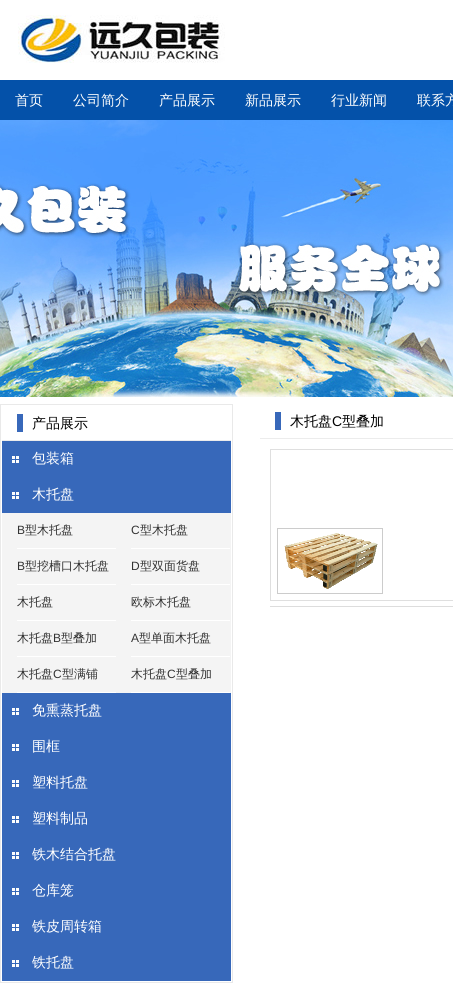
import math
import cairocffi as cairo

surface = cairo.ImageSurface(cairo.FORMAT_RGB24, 453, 998)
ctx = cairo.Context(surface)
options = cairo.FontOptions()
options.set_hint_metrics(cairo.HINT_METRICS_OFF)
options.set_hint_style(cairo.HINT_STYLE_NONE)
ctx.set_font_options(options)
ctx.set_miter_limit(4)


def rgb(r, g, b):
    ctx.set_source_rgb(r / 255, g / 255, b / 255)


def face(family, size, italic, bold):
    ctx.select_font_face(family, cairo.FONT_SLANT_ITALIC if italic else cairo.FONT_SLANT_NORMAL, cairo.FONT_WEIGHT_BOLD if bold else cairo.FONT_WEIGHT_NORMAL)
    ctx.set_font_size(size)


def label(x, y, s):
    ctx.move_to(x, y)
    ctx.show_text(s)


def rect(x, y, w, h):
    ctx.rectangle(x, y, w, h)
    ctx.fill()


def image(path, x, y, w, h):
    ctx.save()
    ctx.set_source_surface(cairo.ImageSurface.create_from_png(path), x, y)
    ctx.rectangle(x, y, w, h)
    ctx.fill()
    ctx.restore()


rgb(255, 255, 255)
ctx.paint()
image('image0.png', 18, 15, 207, 48)
rgb(4, 81, 169)
rect(0, 80, 453, 40)
face('WenQuanYi Zen Hei Medium', 14, 0, 0)
rgb(255, 255, 255)
label(15, 105, '首页')
label(73, 105, '公司简介')
label(159, 105, '产品展示')
label(245, 105, '新品展示')
label(331, 105, '行业新闻')
label(417, 105, '联系方')
image('image1.png', 0, 120, 453, 277)
ctx.rectangle(0.5, 404.5, 232, 578)
rgb(233, 233, 233)
ctx.set_line_width(1)
ctx.stroke()
rgb(236, 236, 236)
rect(2, 440, 229, 1)
rgb(56, 104, 186)
rect(17, 414, 6, 18)
rgb(0, 0, 0)
label(32, 428, '产品展示')
rgb(55, 104, 186)
rect(2, 441, 229, 72)
image('image2.png', 12, 456, 7, 7)
rgb(255, 255, 255)
label(32, 463, '包装箱')
image('image2.png', 12, 492, 7, 7)
label(32, 499, '木托盘')
rgb(244, 244, 244)
rect(2, 513, 229, 180)
rgb(255, 255, 255)
rect(17, 548, 99, 1)
face('Liberation Sans', 12, 0, 0)
rgb(51, 51, 51)
label(17, 534, 'B')
face('WenQuanYi Zen Hei Medium', 12, 0, 0)
label(25, 534, '型木托盘')
rgb(255, 255, 255)
rect(131, 548, 99, 1)
face('Liberation Sans', 12, 0, 0)
rgb(51, 51, 51)
label(131, 534, 'C')
face('WenQuanYi Zen Hei Medium', 12, 0, 0)
label(140, 534, '型木托盘')
rgb(255, 255, 255)
rect(17, 584, 99, 1)
face('Liberation Sans', 12, 0, 0)
rgb(51, 51, 51)
label(17, 570, 'B')
face('WenQuanYi Zen Hei Medium', 12, 0, 0)
label(25, 570, '型挖槽口木托盘')
rgb(255, 255, 255)
rect(131, 584, 99, 1)
face('Liberation Sans', 12, 0, 0)
rgb(51, 51, 51)
label(131, 570, 'D')
face('WenQuanYi Zen Hei Medium', 12, 0, 0)
label(140, 570, '型双面货盘')
rgb(255, 255, 255)
rect(17, 620, 99, 1)
rgb(51, 51, 51)
label(17, 606, '木托盘')
rgb(255, 255, 255)
rect(131, 620, 99, 1)
rgb(51, 51, 51)
label(131, 606, '欧标木托盘')
rgb(255, 255, 255)
rect(17, 656, 99, 1)
rgb(51, 51, 51)
label(17, 642, '木托盘')
face('Liberation Sans', 12, 0, 0)
label(53, 642, 'B')
face('WenQuanYi Zen Hei Medium', 12, 0, 0)
label(61, 642, '型叠加')
rgb(255, 255, 255)
rect(131, 656, 99, 1)
face('Liberation Sans', 12, 0, 0)
rgb(51, 51, 51)
label(131, 642, 'A')
face('WenQuanYi Zen Hei Medium', 12, 0, 0)
label(139, 642, '型单面木托盘')
rgb(255, 255, 255)
rect(17, 692, 99, 1)
rgb(51, 51, 51)
label(17, 678, '木托盘')
face('Liberation Sans', 12, 0, 0)
label(53, 678, 'C')
face('WenQuanYi Zen Hei Medium', 12, 0, 0)
label(62, 678, '型满铺')
rgb(255, 255, 255)
rect(131, 692, 99, 1)
rgb(51, 51, 51)
label(131, 678, '木托盘')
face('Liberation Sans', 12, 0, 0)
label(167, 678, 'C')
face('WenQuanYi Zen Hei Medium', 12, 0, 0)
label(176, 678, '型叠加')
rgb(55, 104, 186)
rect(2, 693, 229, 288)
image('image2.png', 12, 708, 7, 7)
face('WenQuanYi Zen Hei Medium', 14, 0, 0)
rgb(255, 255, 255)
label(32, 715, '免熏蒸托盘')
image('image2.png', 12, 744, 7, 7)
label(32, 751, '围框')
image('image2.png', 12, 780, 7, 7)
label(32, 787, '塑料托盘')
image('image2.png', 12, 816, 7, 7)
label(32, 823, '塑料制品')
image('image2.png', 12, 852, 7, 7)
label(32, 859, '铁木结合托盘')
image('image2.png', 12, 888, 7, 7)
label(32, 895, '仓库笼')
image('image2.png', 12, 924, 7, 7)
label(32, 931, '铁皮周转箱')
image('image2.png', 12, 960, 7, 7)
label(32, 967, '铁托盘')
rgb(236, 236, 236)
rect(260, 438, 193, 1)
rgb(56, 104, 186)
rect(275, 412, 6, 18)
rgb(0, 0, 0)
label(290, 426, '木托盘')
face('Liberation Sans', 14, 0, 0)
label(332, 426, 'C')
face('WenQuanYi Zen Hei Medium', 14, 0, 0)
label(342, 426, '型叠加')
rgb(221, 221, 221)
rect(270, 606, 183, 1)
ctx.rectangle(270.5, 449.5, 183, 151)
rgb(223, 223, 223)
ctx.stroke()
ctx.rectangle(277.5, 528.5, 105, 65)
rgb(204, 204, 204)
ctx.stroke()
image('image3.png', 284, 533, 94, 56)
surface.write_to_png('render.png')
